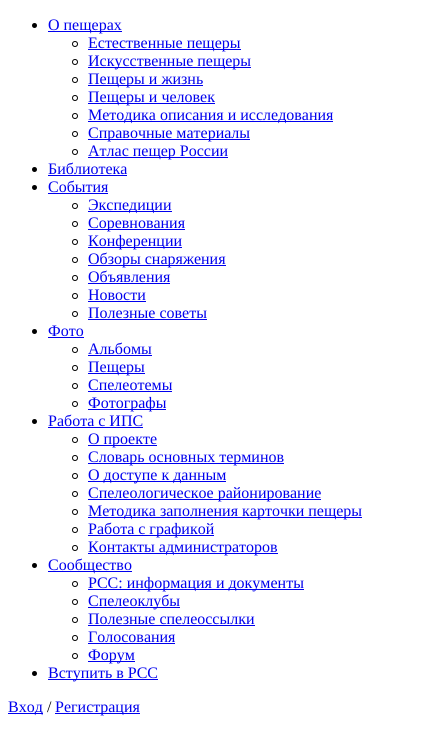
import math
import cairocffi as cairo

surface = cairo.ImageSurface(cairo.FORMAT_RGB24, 434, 751)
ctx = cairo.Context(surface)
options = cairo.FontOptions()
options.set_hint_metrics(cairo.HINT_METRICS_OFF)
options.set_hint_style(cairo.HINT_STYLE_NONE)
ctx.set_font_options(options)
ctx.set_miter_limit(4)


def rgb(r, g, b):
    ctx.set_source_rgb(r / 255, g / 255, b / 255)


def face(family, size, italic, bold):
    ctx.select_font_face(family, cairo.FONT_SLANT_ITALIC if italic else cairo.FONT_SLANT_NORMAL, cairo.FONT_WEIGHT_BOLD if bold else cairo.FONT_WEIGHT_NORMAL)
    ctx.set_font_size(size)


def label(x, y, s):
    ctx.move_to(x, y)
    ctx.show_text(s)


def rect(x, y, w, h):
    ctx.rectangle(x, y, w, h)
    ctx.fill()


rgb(255, 255, 255)
ctx.paint()
rgb(0, 0, 0)
ctx.arc(34.5, 25.5, 2.5, 0, 2 * math.pi)
ctx.fill()
rgb(0, 0, 238)
rect(48, 31, 74, 1)
face('Liberation Serif', 16, 0, 0)
label(48, 30, 'О пещерах')
ctx.new_path()
ctx.arc(75, 44, 2.5, 0, 2 * math.pi)
rgb(0, 0, 0)
ctx.set_line_width(1)
ctx.stroke()
rgb(0, 0, 238)
rect(88, 49, 153, 1)
label(88, 48, 'Естественные пещеры')
ctx.new_path()
ctx.arc(75, 62, 2.5, 0, 2 * math.pi)
rgb(0, 0, 0)
ctx.stroke()
rgb(0, 0, 238)
rect(88, 67, 163, 1)
label(88, 66, 'Искусственные пещеры')
ctx.new_path()
ctx.arc(75, 80, 2.5, 0, 2 * math.pi)
rgb(0, 0, 0)
ctx.stroke()
rgb(0, 0, 238)
rect(88, 85, 115, 1)
label(88, 84, 'Пещеры и жизнь')
ctx.new_path()
ctx.arc(75, 98, 2.5, 0, 2 * math.pi)
rgb(0, 0, 0)
ctx.stroke()
rgb(0, 0, 238)
rect(88, 103, 127, 1)
label(88, 102, 'Пещеры и человек')
ctx.new_path()
ctx.arc(75, 116, 2.5, 0, 2 * math.pi)
rgb(0, 0, 0)
ctx.stroke()
rgb(0, 0, 238)
rect(88, 121, 245, 1)
label(88, 120, 'Методика описания и исследования')
ctx.new_path()
ctx.arc(75, 134, 2.5, 0, 2 * math.pi)
rgb(0, 0, 0)
ctx.stroke()
rgb(0, 0, 238)
rect(88, 139, 162, 1)
label(88, 138, 'Справочные материалы')
ctx.new_path()
ctx.arc(75, 152, 2.5, 0, 2 * math.pi)
rgb(0, 0, 0)
ctx.stroke()
rgb(0, 0, 238)
rect(88, 157, 140, 1)
label(88, 156, 'Атлас пещер России')
rgb(0, 0, 0)
ctx.new_path()
ctx.arc(34.5, 169.5, 2.5, 0, 2 * math.pi)
ctx.fill()
rgb(0, 0, 238)
label(48, 174, 'Библиотека')
rect(48, 175, 79, 1)
rgb(0, 0, 0)
ctx.new_path()
ctx.arc(34.5, 187.5, 2.5, 0, 2 * math.pi)
ctx.fill()
rgb(0, 0, 238)
label(48, 192, 'События')
rect(48, 193, 60, 1)
ctx.new_path()
ctx.arc(75, 206, 2.5, 0, 2 * math.pi)
rgb(0, 0, 0)
ctx.stroke()
rgb(0, 0, 238)
rect(88, 211, 84, 1)
label(88, 210, 'Экспедиции')
ctx.new_path()
ctx.arc(75, 224, 2.5, 0, 2 * math.pi)
rgb(0, 0, 0)
ctx.stroke()
rgb(0, 0, 238)
rect(88, 229, 97, 1)
label(88, 228, 'Соревнования')
ctx.new_path()
ctx.arc(75, 242, 2.5, 0, 2 * math.pi)
rgb(0, 0, 0)
ctx.stroke()
rgb(0, 0, 238)
rect(88, 247, 94, 1)
label(88, 246, 'Конференции')
ctx.new_path()
ctx.arc(75, 260, 2.5, 0, 2 * math.pi)
rgb(0, 0, 0)
ctx.stroke()
rgb(0, 0, 238)
rect(88, 265, 138, 1)
label(88, 264, 'Обзоры снаряжения')
ctx.new_path()
ctx.arc(75, 278, 2.5, 0, 2 * math.pi)
rgb(0, 0, 0)
ctx.stroke()
rgb(0, 0, 238)
label(88, 282, 'Объявления')
rect(88, 283, 82, 1)
ctx.new_path()
ctx.arc(75, 296, 2.5, 0, 2 * math.pi)
rgb(0, 0, 0)
ctx.stroke()
rgb(0, 0, 238)
label(88, 300, 'Новости')
rect(88, 301, 58, 1)
ctx.new_path()
ctx.arc(75, 314, 2.5, 0, 2 * math.pi)
rgb(0, 0, 0)
ctx.stroke()
rgb(0, 0, 238)
label(88, 318, 'Полезные советы')
rect(88, 319, 119, 1)
rgb(0, 0, 0)
ctx.new_path()
ctx.arc(34.5, 331.5, 2.5, 0, 2 * math.pi)
ctx.fill()
rgb(0, 0, 238)
label(48, 336, 'Фото')
rect(48, 337, 36, 1)
ctx.new_path()
ctx.arc(75, 350, 2.5, 0, 2 * math.pi)
rgb(0, 0, 0)
ctx.stroke()
rgb(0, 0, 238)
label(88, 354, 'Альбомы')
rect(88, 355, 64, 1)
ctx.new_path()
ctx.arc(75, 368, 2.5, 0, 2 * math.pi)
rgb(0, 0, 0)
ctx.stroke()
rgb(0, 0, 238)
rect(88, 373, 57, 1)
label(88, 372, 'Пещеры')
ctx.new_path()
ctx.arc(75, 386, 2.5, 0, 2 * math.pi)
rgb(0, 0, 0)
ctx.stroke()
rgb(0, 0, 238)
label(88, 390, 'Спелеотемы')
rect(88, 391, 84, 1)
ctx.new_path()
ctx.arc(75, 404, 2.5, 0, 2 * math.pi)
rgb(0, 0, 0)
ctx.stroke()
rgb(0, 0, 238)
rect(88, 409, 78, 1)
label(88, 408, 'Фотографы')
rgb(0, 0, 0)
ctx.new_path()
ctx.arc(34.5, 421.5, 2.5, 0, 2 * math.pi)
ctx.fill()
rgb(0, 0, 238)
label(48, 426, 'Работа с ИПС')
rect(48, 427, 95, 1)
ctx.new_path()
ctx.arc(75, 440, 2.5, 0, 2 * math.pi)
rgb(0, 0, 0)
ctx.stroke()
rgb(0, 0, 238)
rect(88, 445, 69, 1)
label(88, 444, 'О проекте')
ctx.new_path()
ctx.arc(75, 458, 2.5, 0, 2 * math.pi)
rgb(0, 0, 0)
ctx.stroke()
rgb(0, 0, 238)
rect(88, 463, 196, 1)
label(88, 462, 'Словарь основных терминов')
ctx.new_path()
ctx.arc(75, 476, 2.5, 0, 2 * math.pi)
rgb(0, 0, 0)
ctx.stroke()
rgb(0, 0, 238)
rect(88, 481, 138, 1)
label(88, 480, 'О доступе к данным')
ctx.new_path()
ctx.arc(75, 494, 2.5, 0, 2 * math.pi)
rgb(0, 0, 0)
ctx.stroke()
rgb(0, 0, 238)
rect(88, 499, 233, 1)
label(88, 498, 'Спелеологическое районирование')
ctx.new_path()
ctx.arc(75, 512, 2.5, 0, 2 * math.pi)
rgb(0, 0, 0)
ctx.stroke()
rgb(0, 0, 238)
rect(88, 517, 274, 1)
label(88, 516, 'Методика заполнения карточки пещеры')
ctx.new_path()
ctx.arc(75, 530, 2.5, 0, 2 * math.pi)
rgb(0, 0, 0)
ctx.stroke()
rgb(0, 0, 238)
rect(88, 535, 126, 1)
label(88, 534, 'Работа с графикой')
ctx.new_path()
ctx.arc(75, 548, 2.5, 0, 2 * math.pi)
rgb(0, 0, 0)
ctx.stroke()
rgb(0, 0, 238)
rect(88, 553, 190, 1)
label(88, 552, 'Контакты администраторов')
rgb(0, 0, 0)
ctx.new_path()
ctx.arc(34.5, 565.5, 2.5, 0, 2 * math.pi)
ctx.fill()
rgb(0, 0, 238)
rect(48, 571, 84, 1)
label(48, 570, 'Сообщество')
ctx.new_path()
ctx.arc(75, 584, 2.5, 0, 2 * math.pi)
rgb(0, 0, 0)
ctx.stroke()
rgb(0, 0, 238)
rect(88, 589, 216, 1)
label(88, 588, 'РСС: информация и документы')
ctx.new_path()
ctx.arc(75, 602, 2.5, 0, 2 * math.pi)
rgb(0, 0, 0)
ctx.stroke()
rgb(0, 0, 238)
rect(88, 607, 92, 1)
label(88, 606, 'Спелеоклубы')
ctx.new_path()
ctx.arc(75, 620, 2.5, 0, 2 * math.pi)
rgb(0, 0, 0)
ctx.stroke()
rgb(0, 0, 238)
label(88, 624, 'Полезные спелеоссылки')
rect(88, 625, 167, 1)
ctx.new_path()
ctx.arc(75, 638, 2.5, 0, 2 * math.pi)
rgb(0, 0, 0)
ctx.stroke()
rgb(0, 0, 238)
label(88, 642, 'Голосования')
rect(88, 643, 87, 1)
ctx.new_path()
ctx.arc(75, 656, 2.5, 0, 2 * math.pi)
rgb(0, 0, 0)
ctx.stroke()
rgb(0, 0, 238)
rect(88, 661, 47, 1)
label(88, 660, 'Форум')
rgb(0, 0, 0)
ctx.new_path()
ctx.arc(34.5, 673.5, 2.5, 0, 2 * math.pi)
ctx.fill()
rgb(0, 0, 238)
rect(48, 679, 110, 1)
label(48, 678, 'Вступить в РСС')
rect(8, 713, 35, 1)
label(8, 712, 'Вход')
rgb(0, 0, 0)
label(47, 712, '/')
rgb(0, 0, 238)
rect(55, 713, 85, 1)
label(55, 712, 'Регистрация')
surface.write_to_png('render.png')
